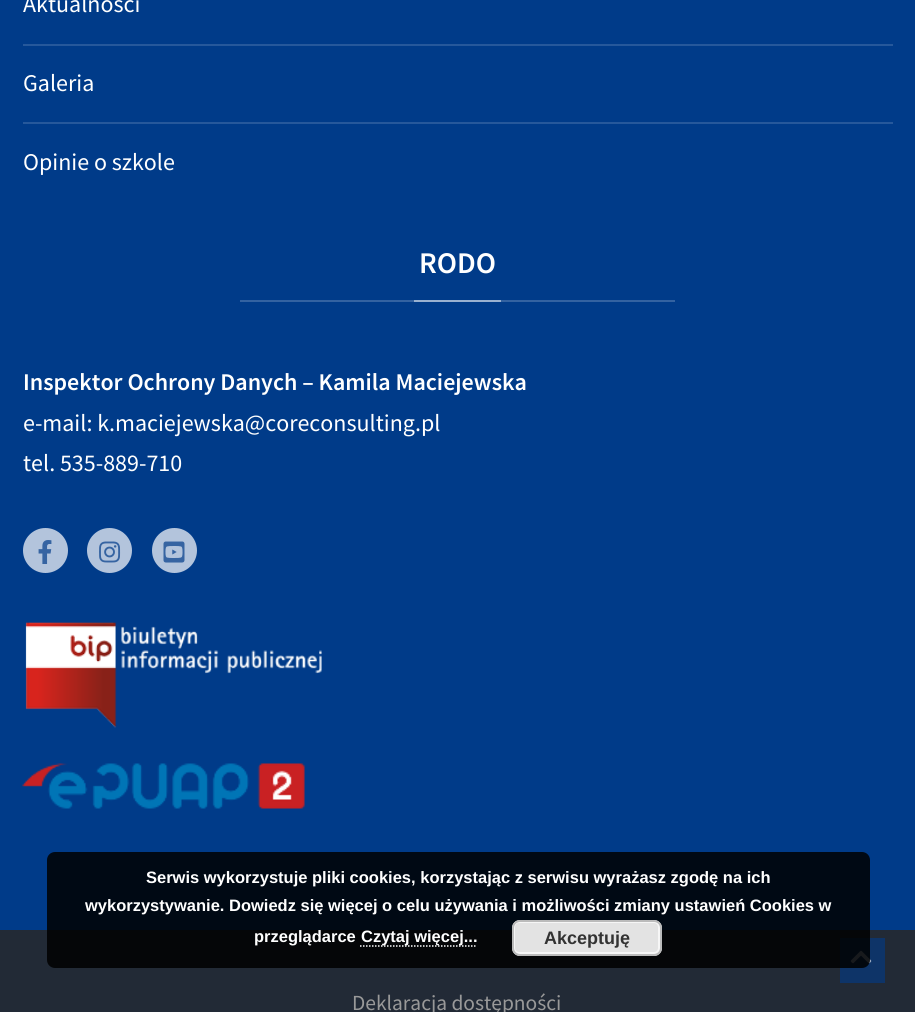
import math
import cairocffi as cairo

surface = cairo.ImageSurface(cairo.FORMAT_RGB24, 915, 1012)
ctx = cairo.Context(surface)
options = cairo.FontOptions()
options.set_hint_metrics(cairo.HINT_METRICS_OFF)
options.set_hint_style(cairo.HINT_STYLE_NONE)
ctx.set_font_options(options)
ctx.set_miter_limit(4)


def rgb(r, g, b):
    ctx.set_source_rgb(r / 255, g / 255, b / 255)


def face(family, size, italic, bold):
    ctx.select_font_face(family, cairo.FONT_SLANT_ITALIC if italic else cairo.FONT_SLANT_NORMAL, cairo.FONT_WEIGHT_BOLD if bold else cairo.FONT_WEIGHT_NORMAL)
    ctx.set_font_size(size)


def label(x, y, s):
    ctx.move_to(x, y)
    ctx.show_text(s)


def rect(x, y, w, h):
    ctx.rectangle(x, y, w, h)
    ctx.fill()


def rrect(x, y, w, h, r):
    ctx.new_sub_path()
    for i, (u, v) in enumerate([(x + w - r, y + h - r), (x + r, y + h - r), (x + r, y + r), (x + w - r, y + r)]):
        ctx.arc(u, v, r, i * math.pi / 2, (i + 1) * math.pi / 2)
    ctx.close_path()


def image(path, x, y, w, h):
    ctx.save()
    ctx.set_source_surface(cairo.ImageSurface.create_from_png(path), x, y)
    ctx.rectangle(x, y, w, h)
    ctx.fill()
    ctx.restore()


rgb(0, 59, 137)
ctx.paint()
rgb(51, 98, 161)
rect(240, 300, 435, 2)
face('Source Sans Pro', 24, 0, 0)
rgb(255, 255, 255)
label(23, 12, 'Aktualności')
rgb(38, 88, 155)
rect(23, 44, 870, 2)
rgb(255, 255, 255)
label(23, 91, 'Galeria')
rgb(38, 88, 155)
rect(23, 122, 870, 2)
rgb(255, 255, 255)
label(23, 170, 'Opinie o szkole')
face('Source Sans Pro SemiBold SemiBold', 30, 0, 0)
label(419, 273, 'RODO')
rgb(153, 177, 208)
rect(414, 300, 87, 2)
face('Source Sans Pro SemiBold SemiBold', 24, 0, 0)
rgb(255, 255, 255)
label(23, 390, 'Inspektor Ochrony Danych – Kamila Maciejewska')
face('Source Sans Pro', 24, 0, 0)
label(23, 431, 'e-mail: k.maciejewska@coreconsulting.pl')
label(23, 471, 'tel. 535-889-710')
rgb(179, 196, 220)
ctx.new_path()
ctx.arc(45.5, 550.5, 22.5, 0, 2 * math.pi)
ctx.fill()
image('image0.png', 38, 540, 14, 24)
ctx.arc(109.5, 550.5, 22.5, 0, 2 * math.pi)
ctx.fill()
image('image1.png', 99, 541, 22, 22)
ctx.arc(174.5, 550.5, 22.5, 0, 2 * math.pi)
ctx.fill()
image('image2.png', 163, 541, 22, 22)
image('image3.png', 25, 622, 297, 106)
image('image4.png', 22, 763, 283, 46)
rgb(34, 42, 54)
rect(0, 930, 915, 82)
rgb(14, 52, 104)
rect(840, 938, 45, 45)
image('image5.png', 850, 950, 22, 14)
face('Source Sans Pro', 21.5, 0, 0)
rgb(153, 153, 153)
label(352, 1010, 'Deklaracja dostępności')
ctx.set_source_rgba(0, 0, 0, 0.85)
rrect(47, 852, 823, 116, 8)
ctx.fill()
face('Liberation Sans', 16.5, 0, 1)
rgb(255, 255, 255)
label(146, 883, 'Serwis wykorzystuje pliki cookies, korzystając z serwisu wyrażasz zgodę na ich')
label(85, 911, 'wykorzystywanie. Dowiedz się więcej o celu używania i możliwości zmiany ustawień Cookies w')
label(254, 942, 'przeglądarce')
ctx.new_path()
ctx.move_to(360, 946)
ctx.line_to(477, 946)
ctx.set_line_width(1.5)
ctx.set_dash([1.5, 1.5])
ctx.stroke()
label(361, 942, 'Czytaj więcej...')
rgb(227, 227, 227)
rrect(512, 920, 150, 36, 8)
ctx.fill()
rrect(514, 922, 145, 31, 5)
rgb(246, 246, 246)
ctx.set_line_width(2)
ctx.set_dash([])
ctx.stroke()
rrect(513, 921, 148, 34, 7)
rgb(187, 187, 187)
ctx.stroke()
face('Liberation Sans', 18, 0, 1)
rgb(51, 51, 51)
label(544, 944, 'Akceptuję')
surface.write_to_png('render.png')
